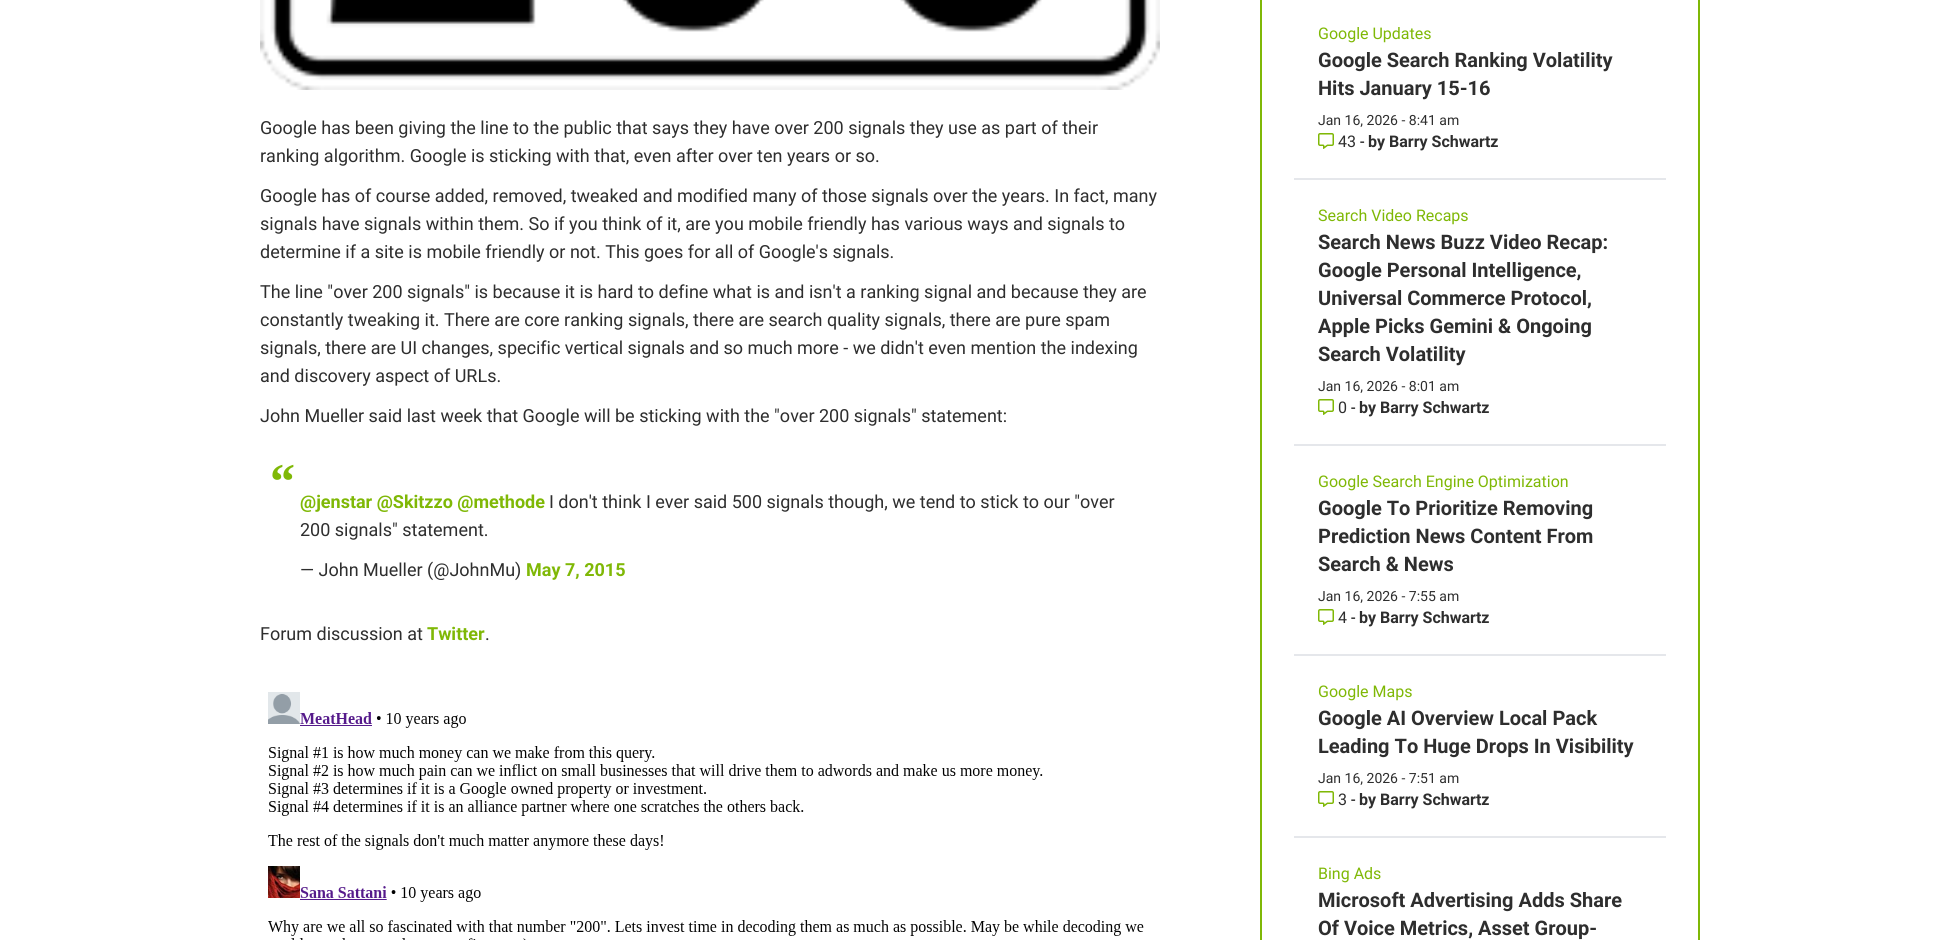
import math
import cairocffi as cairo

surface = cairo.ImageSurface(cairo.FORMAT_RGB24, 1960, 940)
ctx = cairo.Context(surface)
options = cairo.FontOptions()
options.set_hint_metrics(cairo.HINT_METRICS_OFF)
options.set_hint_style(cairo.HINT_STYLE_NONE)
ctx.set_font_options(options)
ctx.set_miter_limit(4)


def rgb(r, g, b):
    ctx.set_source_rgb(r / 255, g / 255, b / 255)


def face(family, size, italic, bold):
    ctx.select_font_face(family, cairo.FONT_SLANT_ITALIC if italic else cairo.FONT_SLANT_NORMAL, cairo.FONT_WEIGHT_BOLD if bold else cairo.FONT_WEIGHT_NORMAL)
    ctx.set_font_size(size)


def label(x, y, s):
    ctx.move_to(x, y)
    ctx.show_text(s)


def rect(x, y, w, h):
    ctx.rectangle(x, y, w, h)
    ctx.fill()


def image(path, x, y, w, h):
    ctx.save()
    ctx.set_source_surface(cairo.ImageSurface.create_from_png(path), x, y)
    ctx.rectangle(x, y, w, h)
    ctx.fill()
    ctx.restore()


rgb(255, 255, 255)
ctx.paint()
image('image0.png', 260, 0, 900, 90)
face('Roboto', 18, 0, 0)
rgb(46, 46, 46)
label(260, 134, 'Google has been giving the line to the public that says they have over 200 signals they use as part of their')
label(260, 162, 'ranking algorithm. Google is sticking with that, even after over ten years or so.')
label(260, 202, 'Google has of course added, removed, tweaked and modified many of those signals over the years. In fact, many')
label(260, 230, 'signals have signals within them. So if you think of it, are you mobile friendly has various ways and signals to')
label(260, 258, 'determine if a site is mobile friendly or not. This goes for all of Google\'s signals.')
label(260, 298, 'The line "over 200 signals" is because it is hard to define what is and isn\'t a ranking signal and because they are')
label(260, 326, 'constantly tweaking it. There are core ranking signals, there are search quality signals, there are pure spam')
label(260, 354, 'signals, there are UI changes, specific vertical signals and so much more - we didn\'t even mention the indexing')
label(260, 382, 'and discovery aspect of URLs.')
label(260, 422, 'John Mueller said last week that Google will be sticking with the "over 200 signals" statement:')
face('Liberation Serif', 50, 0, 1)
rgb(127, 184, 6)
label(270, 498, '“')
face('Roboto', 18, 0, 1)
label(300, 508, '@jenstar @Skitzzo @methode')
face('Roboto', 18, 0, 0)
rgb(46, 46, 46)
label(549, 508, 'I don\'t think I ever said 500 signals though, we tend to stick to our "over')
label(300, 536, '200 signals" statement.')
label(300, 576, '— John Mueller (@JohnMu)')
face('Roboto', 18, 0, 1)
rgb(127, 184, 6)
label(526, 576, 'May 7, 2015')
face('Roboto', 18, 0, 0)
rgb(46, 46, 46)
label(260, 640, 'Forum discussion at')
face('Roboto', 18, 0, 1)
rgb(127, 184, 6)
label(427, 640, 'Twitter')
face('Roboto', 18, 0, 0)
rgb(46, 46, 46)
label(485, 640, '.')
image('image1.png', 268, 692, 876, 248)
ctx.rectangle(1261, -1, 438, 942)
rgb(127, 184, 6)
ctx.stroke()
rgb(229, 231, 235)
rect(1294, 178, 372, 2)
face('Roboto', 16, 0, 0)
rgb(127, 184, 6)
label(1318, 39, 'Google Updates')
face('Roboto', 20, 0, 1)
rgb(46, 46, 46)
label(1318, 67, 'Google Search Ranking Volatility')
label(1318, 95, 'Hits January 15-16')
face('Roboto', 14, 0, 0)
label(1318, 125, 'Jan 16, 2026 - 8:41 am')
image('image2.png', 1318, 133, 16, 16)
face('Roboto', 16, 0, 0)
label(1338, 147, '43')
rgb(0, 0, 0)
label(1360, 147, '-')
face('Roboto', 16, 0, 1)
rgb(46, 46, 46)
label(1368, 147, 'by Barry Schwartz')
rgb(229, 231, 235)
rect(1294, 444, 372, 2)
face('Roboto', 16, 0, 0)
rgb(127, 184, 6)
label(1318, 221, 'Search Video Recaps')
face('Roboto', 20, 0, 1)
rgb(46, 46, 46)
label(1318, 249, 'Search News Buzz Video Recap:')
label(1318, 277, 'Google Personal Intelligence,')
label(1318, 305, 'Universal Commerce Protocol,')
label(1318, 333, 'Apple Picks Gemini & Ongoing')
label(1318, 361, 'Search Volatility')
face('Roboto', 14, 0, 0)
label(1318, 391, 'Jan 16, 2026 - 8:01 am')
image('image2.png', 1318, 399, 16, 16)
face('Roboto', 16, 0, 0)
label(1338, 413, '0')
rgb(0, 0, 0)
label(1351, 413, '-')
face('Roboto', 16, 0, 1)
rgb(46, 46, 46)
label(1359, 413, 'by Barry Schwartz')
rgb(229, 231, 235)
rect(1294, 654, 372, 2)
face('Roboto', 16, 0, 0)
rgb(127, 184, 6)
label(1318, 487, 'Google Search Engine Optimization')
face('Roboto', 20, 0, 1)
rgb(46, 46, 46)
label(1318, 515, 'Google To Prioritize Removing')
label(1318, 543, 'Prediction News Content From')
label(1318, 571, 'Search & News')
face('Roboto', 14, 0, 0)
label(1318, 601, 'Jan 16, 2026 - 7:55 am')
image('image2.png', 1318, 609, 16, 16)
face('Roboto', 16, 0, 0)
label(1338, 623, '4')
rgb(0, 0, 0)
label(1351, 623, '-')
face('Roboto', 16, 0, 1)
rgb(46, 46, 46)
label(1359, 623, 'by Barry Schwartz')
rgb(229, 231, 235)
rect(1294, 836, 372, 2)
face('Roboto', 16, 0, 0)
rgb(127, 184, 6)
label(1318, 697, 'Google Maps')
face('Roboto', 20, 0, 1)
rgb(46, 46, 46)
label(1318, 725, 'Google AI Overview Local Pack')
label(1318, 753, 'Leading To Huge Drops In Visibility')
face('Roboto', 14, 0, 0)
label(1318, 783, 'Jan 16, 2026 - 7:51 am')
image('image2.png', 1318, 791, 16, 16)
face('Roboto', 16, 0, 0)
label(1338, 805, '3')
rgb(0, 0, 0)
label(1351, 805, '-')
face('Roboto', 16, 0, 1)
rgb(46, 46, 46)
label(1359, 805, 'by Barry Schwartz')
face('Roboto', 16, 0, 0)
rgb(127, 184, 6)
label(1318, 879, 'Bing Ads')
face('Roboto', 20, 0, 1)
rgb(46, 46, 46)
label(1318, 907, 'Microsoft Advertising Adds Share')
label(1318, 935, 'Of Voice Metrics, Asset Group-')
surface.write_to_png('render.png')
